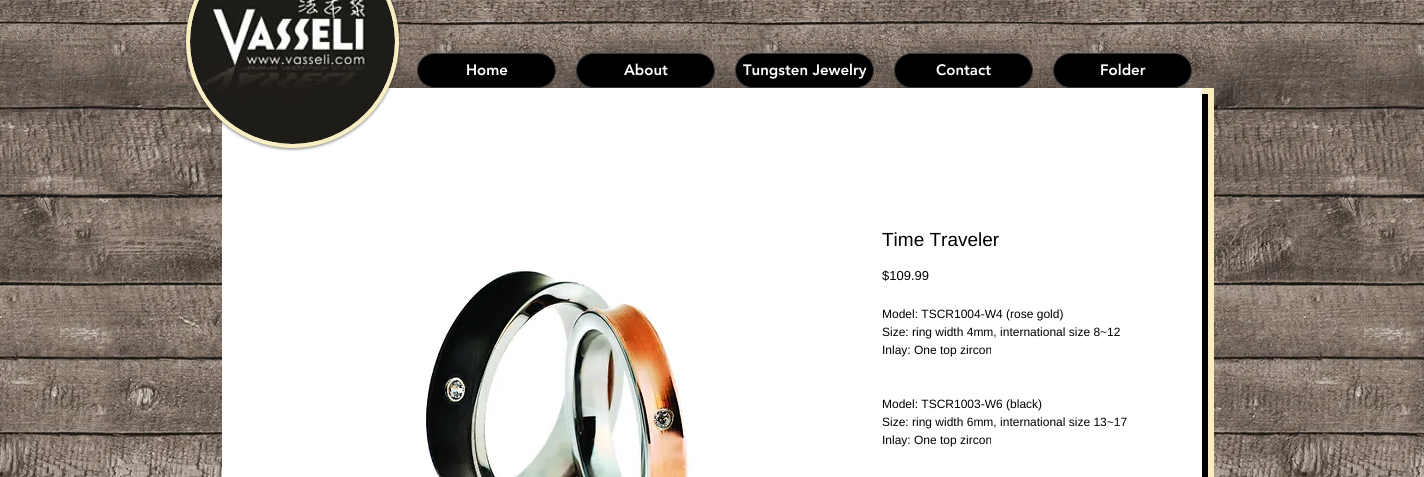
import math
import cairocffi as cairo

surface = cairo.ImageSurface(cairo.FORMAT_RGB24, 1424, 477)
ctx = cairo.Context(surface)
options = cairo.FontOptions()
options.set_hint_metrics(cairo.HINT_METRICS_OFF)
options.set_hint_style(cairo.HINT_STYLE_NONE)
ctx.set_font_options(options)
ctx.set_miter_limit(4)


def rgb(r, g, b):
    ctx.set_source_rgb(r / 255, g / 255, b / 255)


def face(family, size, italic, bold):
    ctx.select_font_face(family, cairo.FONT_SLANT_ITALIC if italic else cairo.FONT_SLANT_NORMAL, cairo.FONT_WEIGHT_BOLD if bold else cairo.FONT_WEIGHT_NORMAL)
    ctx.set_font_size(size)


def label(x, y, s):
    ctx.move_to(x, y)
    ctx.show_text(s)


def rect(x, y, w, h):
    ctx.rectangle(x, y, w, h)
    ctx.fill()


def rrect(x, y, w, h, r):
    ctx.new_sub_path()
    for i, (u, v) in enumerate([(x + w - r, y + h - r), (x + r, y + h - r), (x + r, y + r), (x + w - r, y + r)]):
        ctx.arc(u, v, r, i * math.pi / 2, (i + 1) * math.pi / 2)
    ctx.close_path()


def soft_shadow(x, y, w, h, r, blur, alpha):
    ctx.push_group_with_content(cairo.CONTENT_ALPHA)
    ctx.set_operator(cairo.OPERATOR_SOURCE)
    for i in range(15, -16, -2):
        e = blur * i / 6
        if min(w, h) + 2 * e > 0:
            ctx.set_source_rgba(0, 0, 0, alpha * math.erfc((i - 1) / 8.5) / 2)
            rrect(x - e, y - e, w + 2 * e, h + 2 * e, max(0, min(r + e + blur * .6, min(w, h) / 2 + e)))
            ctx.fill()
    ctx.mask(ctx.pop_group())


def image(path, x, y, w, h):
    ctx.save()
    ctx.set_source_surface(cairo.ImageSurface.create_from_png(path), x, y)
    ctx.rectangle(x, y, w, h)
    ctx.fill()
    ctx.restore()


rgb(255, 255, 255)
ctx.paint()
image('image0.png', 0, 0, 1424, 477)
rgb(0, 0, 0)
rect(1202, 94, 6, 383)
ctx.rectangle(225, 91, 986, 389)
rgb(249, 238, 194)
ctx.set_line_width(6)
ctx.stroke()
rgb(255, 255, 255)
rect(222, 88, 980, 389)
rgb(0, 0, 0)
soft_shadow(186, -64, 213, 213, 106.5, 1.5, 0.5)
rgb(249, 238, 194)
ctx.arc(292.5, 41.5, 104.5, 0, 2 * math.pi)
ctx.fill_preserve()
ctx.set_line_width(4)
ctx.stroke()
image('image1.png', 190, 0, 205, 144)
rgb(0, 0, 0)
rrect(417.5, 53.5, 138, 34, 17)
ctx.fill_preserve()
rgb(56, 56, 56)
ctx.set_line_width(1)
ctx.stroke()
face('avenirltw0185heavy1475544 Black', 15, 0, 0)
rgb(255, 255, 255)
label(466, 75, 'Home')
rgb(0, 0, 0)
rrect(576.5, 53.5, 138, 34, 17)
ctx.fill_preserve()
rgb(56, 56, 56)
ctx.stroke()
rgb(255, 255, 255)
label(624, 75, 'About')
rgb(0, 0, 0)
rrect(735.5, 53.5, 138, 34, 17)
ctx.fill_preserve()
rgb(56, 56, 56)
ctx.stroke()
rgb(255, 255, 255)
label(743, 75, 'Tungsten Jewelry')
rgb(0, 0, 0)
rrect(894.5, 53.5, 138, 34, 17)
ctx.fill_preserve()
rgb(56, 56, 56)
ctx.stroke()
rgb(255, 255, 255)
label(936, 75, 'Contact')
rgb(0, 0, 0)
rrect(1053.5, 53.5, 138, 34, 17)
ctx.fill_preserve()
rgb(56, 56, 56)
ctx.stroke()
rgb(255, 255, 255)
label(1100, 75, 'Folder')
image('image2.png', 424, 269, 267, 208)
face('Liberation Sans', 19, 0, 0)
rgb(0, 0, 0)
label(882, 246, 'Time Traveler')
face('Liberation Sans', 13, 0, 0)
label(882, 280, '$109.99')
face('Liberation Sans', 12, 0, 0)
label(882, 318, 'Model: TSCR1004-W4 (rose gold)')
label(882, 336, 'Size: ring width 4mm, international size 8~12')
label(882, 354, 'Inlay: One top zircon')
label(882, 408, 'Model: TSCR1003-W6 (black)')
label(882, 426, 'Size: ring width 6mm, international size 13~17')
label(882, 444, 'Inlay: One top zircon')
surface.write_to_png('render.png')
